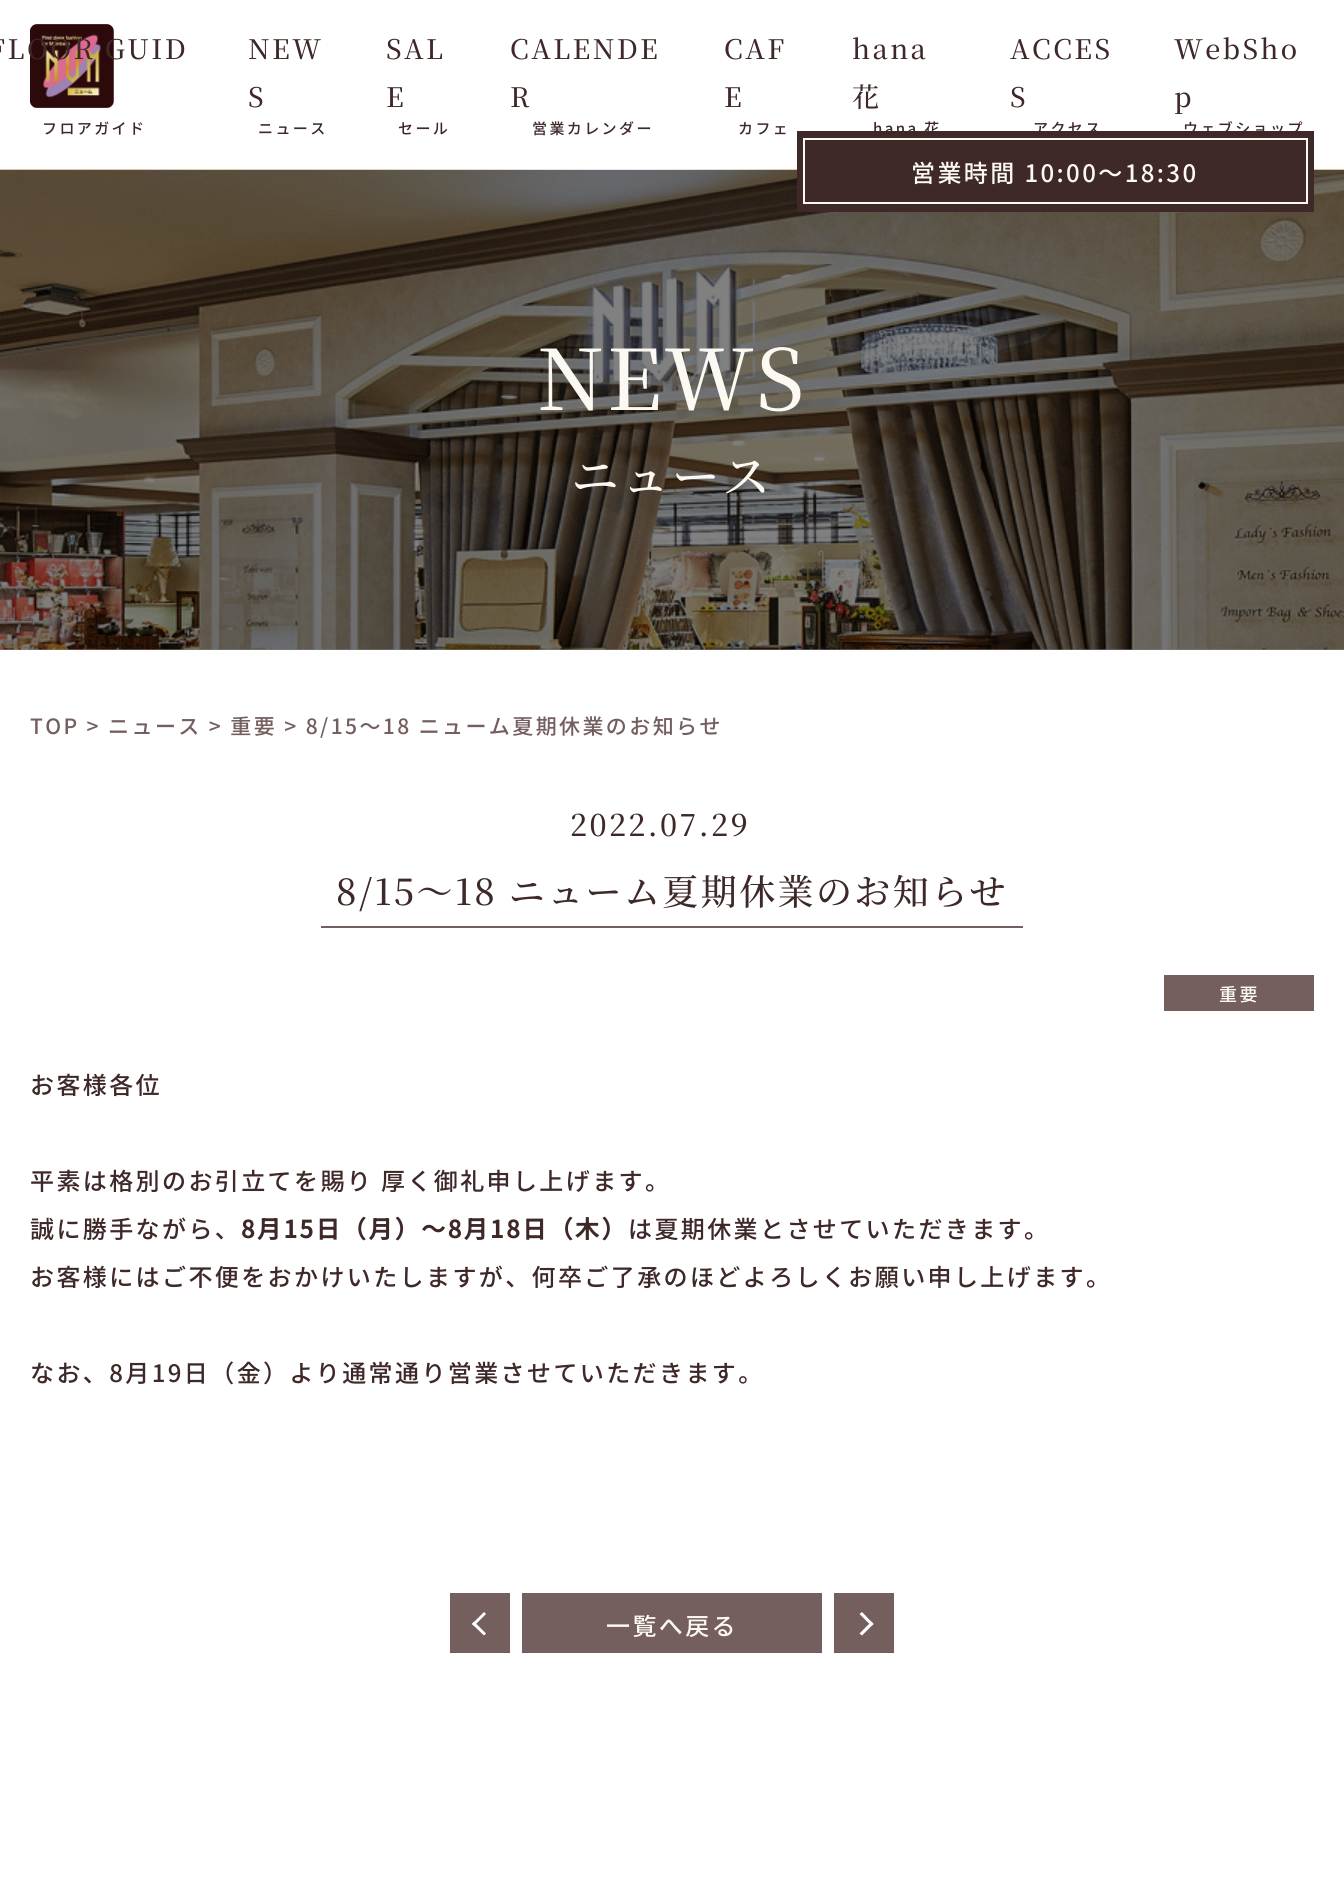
import math
import cairocffi as cairo

surface = cairo.ImageSurface(cairo.FORMAT_RGB24, 1344, 1880)
ctx = cairo.Context(surface)
options = cairo.FontOptions()
options.set_hint_metrics(cairo.HINT_METRICS_OFF)
options.set_hint_style(cairo.HINT_STYLE_NONE)
ctx.set_font_options(options)
ctx.set_miter_limit(4)


def rgb(r, g, b):
    ctx.set_source_rgb(r / 255, g / 255, b / 255)


def face(family, size, italic, bold):
    ctx.select_font_face(family, cairo.FONT_SLANT_ITALIC if italic else cairo.FONT_SLANT_NORMAL, cairo.FONT_WEIGHT_BOLD if bold else cairo.FONT_WEIGHT_NORMAL)
    ctx.set_font_size(size)


def tracked(x, y, s, letter, word):
    ctx.move_to(x, y)
    for ch in s:
        ctx.show_text(ch)
        ctx.rel_move_to(letter + word * (ch == ' '), 0)


def rect(x, y, w, h):
    ctx.rectangle(x, y, w, h)
    ctx.fill()


def image(path, x, y, w, h):
    ctx.save()
    ctx.set_source_surface(cairo.ImageSurface.create_from_png(path), x, y)
    ctx.rectangle(x, y, w, h)
    ctx.fill()
    ctx.restore()


rgb(255, 255, 255)
ctx.paint()
rgb(128, 128, 128)
rect(0, 649, 1344, 1)
image('image0.png', 30, 24, 84, 84)
face('Noto Serif JP ExtraLight', 27, 0, 0)
rgb(62, 40, 40)
tracked(-12, 59, 'FLOOR GUID', 2.4, 0)
face('Noto Sans JP Thin', 15, 0, 0)
tracked(42, 134, 'フロアガイド', 2.4, 0)
face('Noto Serif JP ExtraLight', 27, 0, 0)
tracked(248, 59, 'NEW', 2.4, 0)
tracked(248, 107, 'S', 2.4, 0)
face('Noto Sans JP Thin', 15, 0, 0)
tracked(258, 134, 'ニュース', 2.4, 0)
face('Noto Serif JP ExtraLight', 27, 0, 0)
tracked(386, 59, 'SAL', 2.4, 0)
tracked(386, 107, 'E', 2.4, 0)
face('Noto Sans JP Thin', 15, 0, 0)
tracked(398, 134, 'セール', 2.4, 0)
face('Noto Serif JP ExtraLight', 27, 0, 0)
tracked(510, 59, 'CALENDE', 2.4, 0)
tracked(510, 107, 'R', 2.4, 0)
face('Noto Sans JP Thin', 15, 0, 0)
tracked(532, 134, '営業カレンダー', 2.4, 0)
face('Noto Serif JP ExtraLight', 27, 0, 0)
tracked(724, 59, 'CAF', 2.4, 0)
tracked(724, 107, 'E', 2.4, 0)
face('Noto Sans JP Thin', 15, 0, 0)
tracked(738, 134, 'カフェ', 2.4, 0)
face('Noto Serif JP ExtraLight', 27, 0, 0)
tracked(852, 59, 'hana', 2.4, 0)
tracked(852, 107, '花', 2.4, 0)
image('image1.png', 0, 169, 1344, 481)
rect(797, 131, 517, 81)
face('Noto Sans JP Thin', 15, 0, 0)
tracked(873, 134, 'hana 花', 2.4, 0)
face('Noto Serif JP ExtraLight', 27, 0, 0)
tracked(1010, 59, 'ACCES', 2.4, 0)
tracked(1010, 107, 'S', 2.4, 0)
face('Noto Sans JP Thin', 15, 0, 0)
tracked(1033, 134, 'アクセス', 2.4, 0)
face('Noto Serif JP ExtraLight', 27, 0, 0)
tracked(1174, 59, 'WebSho', 2.4, 0)
tracked(1174, 107, 'p', 2.4, 0)
face('Noto Sans JP Thin', 15, 0, 0)
tracked(1183, 134, 'ウェブショップ', 2.4, 0)
ctx.rectangle(804, 139, 503, 64)
rgb(252, 249, 242)
ctx.stroke()
face('Noto Sans JP Thin', 24, 0, 0)
tracked(911, 182, '営業時間 10:00〜18:30', 2.4, 0)
face('Noto Serif JP ExtraLight', 84, 0, 0)
tracked(537, 410, 'NEWS', 2.4, 0)
face('Noto Serif JP ExtraLight', 48, 0, 0)
tracked(571, 494, 'ニュース', 2.4, 0)
face('Noto Sans JP Thin', 21, 0, 0)
rgb(116, 94, 94)
tracked(30, 734, 'TOP > ニュース > 重要 > 8/15〜18 ニューム夏期休業のお知らせ', 2.4, 0)
face('Noto Serif JP ExtraLight', 30, 0, 0)
rgb(62, 40, 40)
tracked(570, 836, '2022.07.29', 2.4, 0)
rgb(116, 94, 94)
rect(321, 926, 702, 2)
face('Noto Serif JP ExtraLight', 36, 0, 0)
rgb(62, 40, 40)
tracked(336, 905, '8/15〜18 ニューム夏期休業のお知らせ', 2.4, 0)
rgb(116, 94, 94)
rect(1164, 975, 150, 36)
face('Noto Sans JP Thin', 18, 0, 0)
rgb(252, 249, 242)
tracked(1219, 1001, '重要', 2.4, 0)
face('Noto Sans JP Thin', 24, 0, 0)
rgb(62, 40, 40)
tracked(30, 1094, 'お客様各位', 2.4, 0)
tracked(30, 1190, '平素は格別のお引立てを賜り 厚く御礼申し上げます。', 2.4, 0)
tracked(30, 1238, '誠に勝手ながら、', 2.4, 0)
face('Noto Sans JP', 24, 0, 1)
tracked(241, 1238, '8月15日（月）〜8月18日（木）', 2.4, 0)
face('Noto Sans JP Thin', 24, 0, 0)
tracked(628, 1238, 'は夏期休業とさせていただきます。', 2.4, 0)
tracked(30, 1286, 'お客様にはご不便をおかけいたしますが、何卒ご了承のほどよろしくお願い申し上げます。', 2.4, 0)
tracked(30, 1382, 'なお、8月19日（金）より通常通り営業させていただきます。', 2.4, 0)
rgb(116, 94, 94)
rect(450, 1593, 60, 60)
rgb(255, 255, 255)
ctx.new_path()
ctx.move_to(484, 1635.5)
ctx.line_to(472, 1624)
ctx.line_to(474, 1621.5)
ctx.line_to(486, 1633.5)
ctx.close_path()
ctx.fill()
ctx.new_path()
ctx.move_to(474, 1626)
ctx.line_to(472, 1624)
ctx.line_to(484, 1612)
ctx.line_to(486, 1614)
ctx.close_path()
ctx.fill()
rgb(116, 94, 94)
rect(522, 1593, 300, 60)
rgb(252, 249, 242)
tracked(606, 1635, '一覧へ戻る', 2.4, 0)
rgb(116, 94, 94)
rect(834, 1593, 60, 60)
rgb(255, 255, 255)
ctx.new_path()
ctx.move_to(862, 1612)
ctx.line_to(873.5, 1624)
ctx.line_to(871.5, 1626)
ctx.line_to(859.5, 1614)
ctx.close_path()
ctx.fill()
ctx.new_path()
ctx.move_to(871.5, 1621.5)
ctx.line_to(873.5, 1624)
ctx.line_to(862, 1635.5)
ctx.line_to(859.5, 1633.5)
ctx.close_path()
ctx.fill()
surface.write_to_png('render.png')
